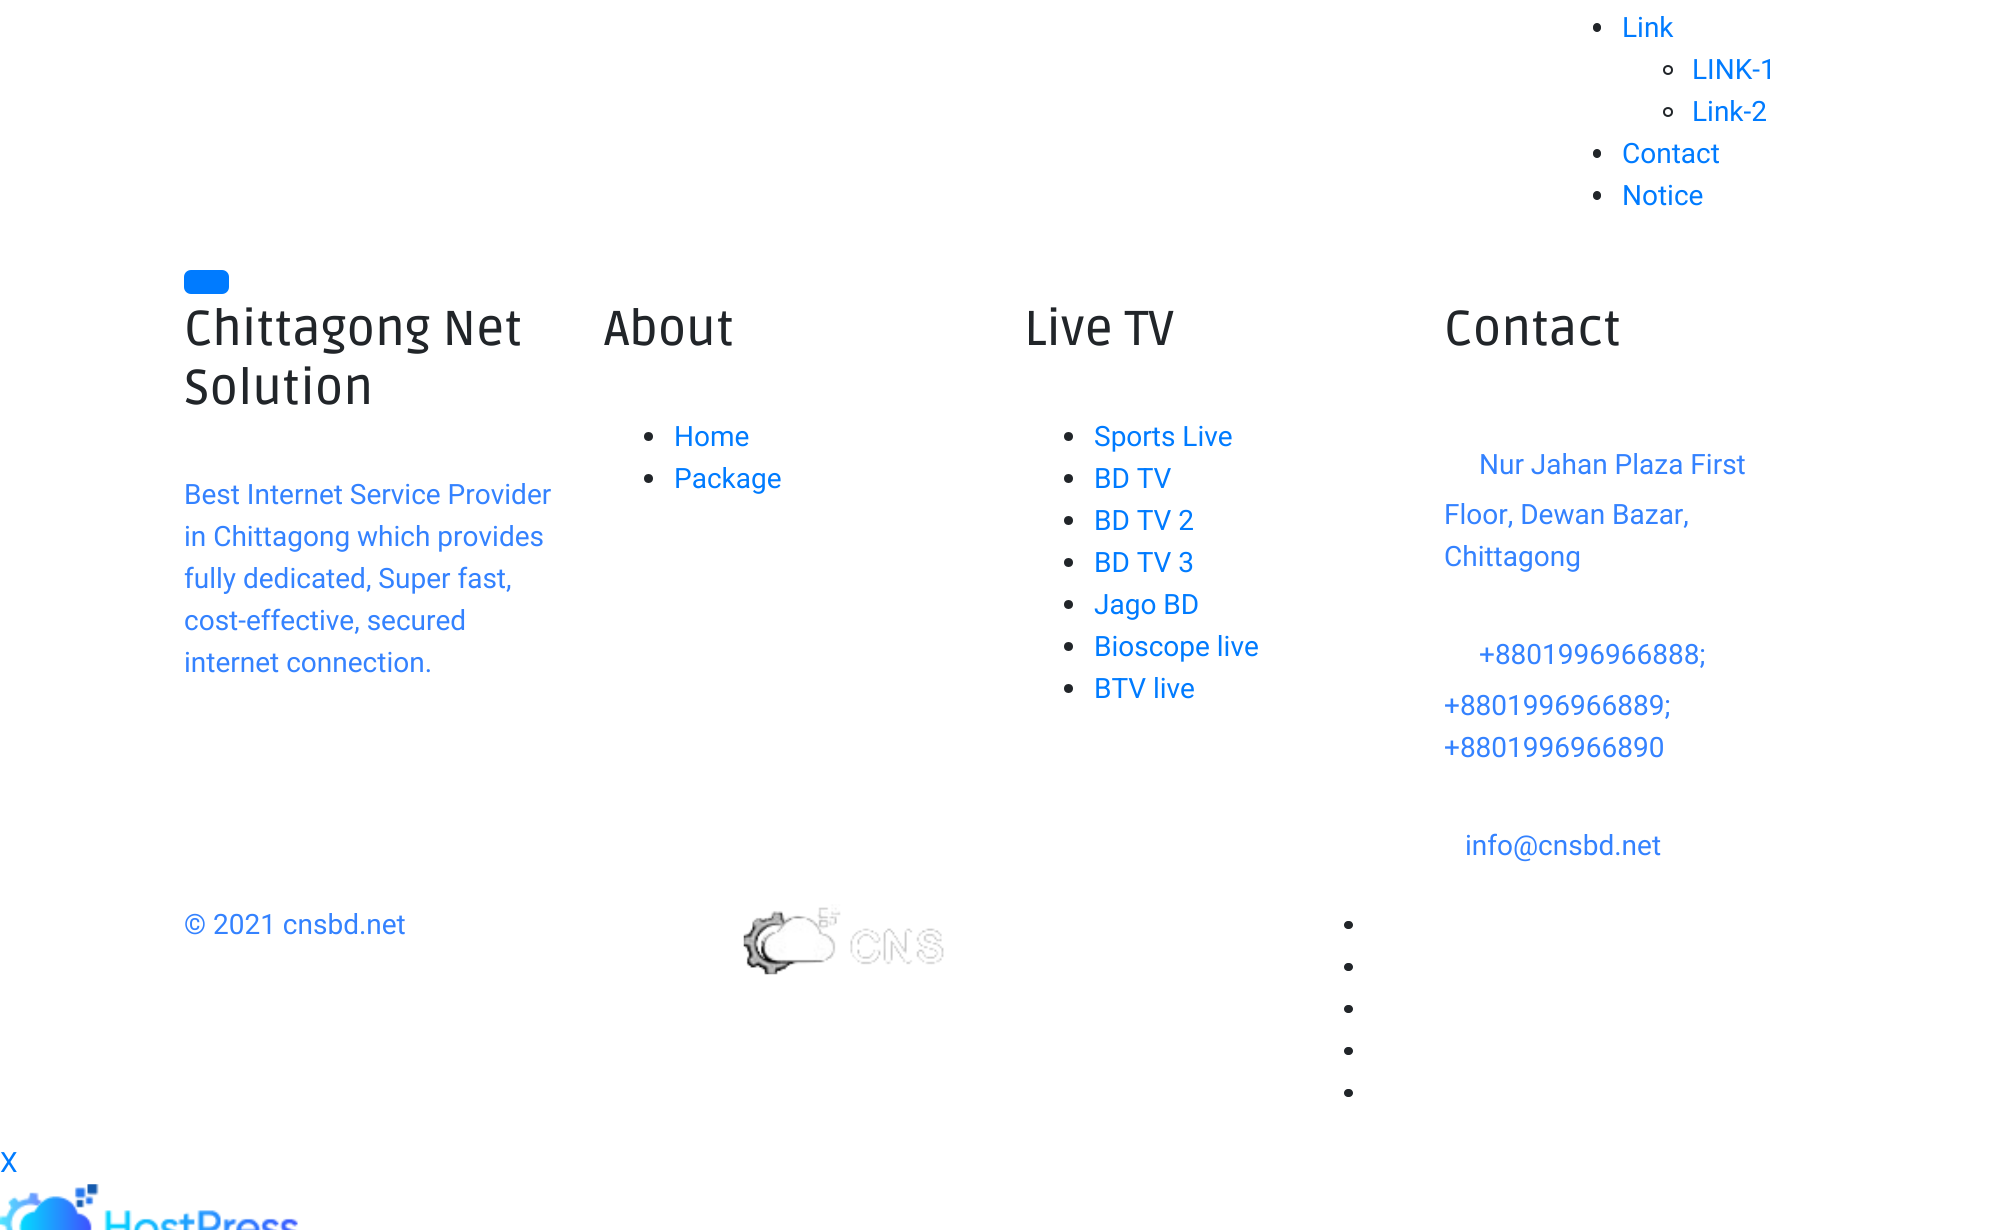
import math
import cairocffi as cairo

surface = cairo.ImageSurface(cairo.FORMAT_RGB24, 1994, 1230)
ctx = cairo.Context(surface)
options = cairo.FontOptions()
options.set_hint_metrics(cairo.HINT_METRICS_OFF)
options.set_hint_style(cairo.HINT_STYLE_NONE)
ctx.set_font_options(options)
ctx.set_miter_limit(4)


def rgb(r, g, b):
    ctx.set_source_rgb(r / 255, g / 255, b / 255)


def face(family, size, italic, bold):
    ctx.select_font_face(family, cairo.FONT_SLANT_ITALIC if italic else cairo.FONT_SLANT_NORMAL, cairo.FONT_WEIGHT_BOLD if bold else cairo.FONT_WEIGHT_NORMAL)
    ctx.set_font_size(size)


def label(x, y, s):
    ctx.move_to(x, y)
    ctx.show_text(s)


def rrect(x, y, w, h, r):
    ctx.new_sub_path()
    for i, (u, v) in enumerate([(x + w - r, y + h - r), (x + r, y + h - r), (x + r, y + r), (x + w - r, y + r)]):
        ctx.arc(u, v, r, i * math.pi / 2, (i + 1) * math.pi / 2)
    ctx.close_path()


def image(path, x, y, w, h):
    ctx.save()
    ctx.set_source_surface(cairo.ImageSurface.create_from_png(path), x, y)
    ctx.rectangle(x, y, w, h)
    ctx.fill()
    ctx.restore()


rgb(255, 255, 255)
ctx.paint()
rgb(33, 37, 41)
rrect(1593, 23, 8, 9, 4)
ctx.fill()
face('Roboto', 28, 0, 0)
rgb(0, 123, 255)
label(1622, 37, 'Link')
ctx.new_path()
ctx.arc(1668, 70, 4, 0, 2 * math.pi)
rgb(33, 37, 41)
ctx.stroke()
rgb(0, 123, 255)
label(1692, 79, 'LINK-1')
ctx.new_path()
ctx.arc(1668, 112, 4, 0, 2 * math.pi)
rgb(33, 37, 41)
ctx.stroke()
rgb(0, 123, 255)
label(1692, 121, 'Link-2')
rgb(33, 37, 41)
rrect(1593, 149, 8, 9, 4)
ctx.fill()
rgb(0, 123, 255)
label(1622, 163, 'Contact')
rgb(33, 37, 41)
rrect(1593, 191, 8, 9, 4)
ctx.fill()
rgb(0, 123, 255)
label(1622, 205, 'Notice')
rrect(185, 271, 43, 22, 6)
ctx.fill_preserve()
ctx.stroke()
face('Ruda Medium', 49, 0, 0)
rgb(33, 37, 41)
label(184, 345, 'Chittagong Net')
label(184, 404, 'Solution')
face('Roboto', 28, 0, 0)
rgb(52, 130, 255)
label(184, 504, 'Best Internet Service Provider')
label(184, 546, 'in Chittagong which provides')
label(184, 588, 'fully dedicated, Super fast,')
label(184, 630, 'cost-effective, secured')
label(184, 672, 'internet connection.')
face('Ruda Medium', 49, 0, 0)
rgb(33, 37, 41)
label(604, 345, 'About')
ctx.new_path()
ctx.arc(648.5, 436.5, 4.5, 0, 2 * math.pi)
ctx.fill()
face('Roboto', 28, 0, 0)
rgb(0, 123, 255)
label(674, 446, 'Home')
rgb(33, 37, 41)
ctx.new_path()
ctx.arc(648.5, 478.5, 4.5, 0, 2 * math.pi)
ctx.fill()
rgb(0, 123, 255)
label(674, 488, 'Package')
face('Ruda Medium', 49, 0, 0)
rgb(33, 37, 41)
label(1024, 345, 'Live TV')
ctx.new_path()
ctx.arc(1068.5, 436.5, 4.5, 0, 2 * math.pi)
ctx.fill()
face('Roboto', 28, 0, 0)
rgb(0, 123, 255)
label(1094, 446, 'Sports Live')
rgb(33, 37, 41)
ctx.new_path()
ctx.arc(1068.5, 478.5, 4.5, 0, 2 * math.pi)
ctx.fill()
rgb(0, 123, 255)
label(1094, 488, 'BD TV')
rgb(33, 37, 41)
ctx.new_path()
ctx.arc(1068.5, 520.5, 4.5, 0, 2 * math.pi)
ctx.fill()
rgb(0, 123, 255)
label(1094, 530, 'BD TV 2')
rgb(33, 37, 41)
ctx.new_path()
ctx.arc(1068.5, 562.5, 4.5, 0, 2 * math.pi)
ctx.fill()
rgb(0, 123, 255)
label(1094, 572, 'BD TV 3')
rgb(33, 37, 41)
ctx.new_path()
ctx.arc(1068.5, 604.5, 4.5, 0, 2 * math.pi)
ctx.fill()
rgb(0, 123, 255)
label(1094, 614, 'Jago BD')
rgb(33, 37, 41)
ctx.new_path()
ctx.arc(1068.5, 646.5, 4.5, 0, 2 * math.pi)
ctx.fill()
rgb(0, 123, 255)
label(1094, 656, 'Bioscope live')
rgb(33, 37, 41)
ctx.new_path()
ctx.arc(1068.5, 688.5, 4.5, 0, 2 * math.pi)
ctx.fill()
rgb(0, 123, 255)
label(1094, 698, 'BTV live')
face('Ruda Medium', 49, 0, 0)
rgb(33, 37, 41)
label(1444, 345, 'Contact')
face('Roboto', 28, 0, 0)
rgb(52, 130, 255)
label(1479, 474, 'Nur Jahan Plaza First')
label(1444, 524, 'Floor, Dewan Bazar,')
label(1444, 566, 'Chittagong')
label(1479, 664, '+8801996966888;')
label(1444, 715, '+8801996966889;')
label(1444, 757, '+8801996966890')
label(1465, 855, 'info@cnsbd.net')
label(184, 934, '© 2021 cnsbd.net')
image('image0.png', 743, 904, 201, 71)
rgb(33, 37, 41)
rrect(1344, 921, 9, 8, 4)
ctx.fill()
rrect(1344, 963, 9, 8, 4)
ctx.fill()
rrect(1344, 1005, 9, 8, 4)
ctx.fill()
rrect(1344, 1047, 9, 8, 4)
ctx.fill()
rrect(1344, 1089, 9, 8, 4)
ctx.fill()
rgb(0, 123, 255)
label(0, 1172, 'X')
image('image1.png', 0, 1184, 298, 46)
surface.write_to_png('render.png')
